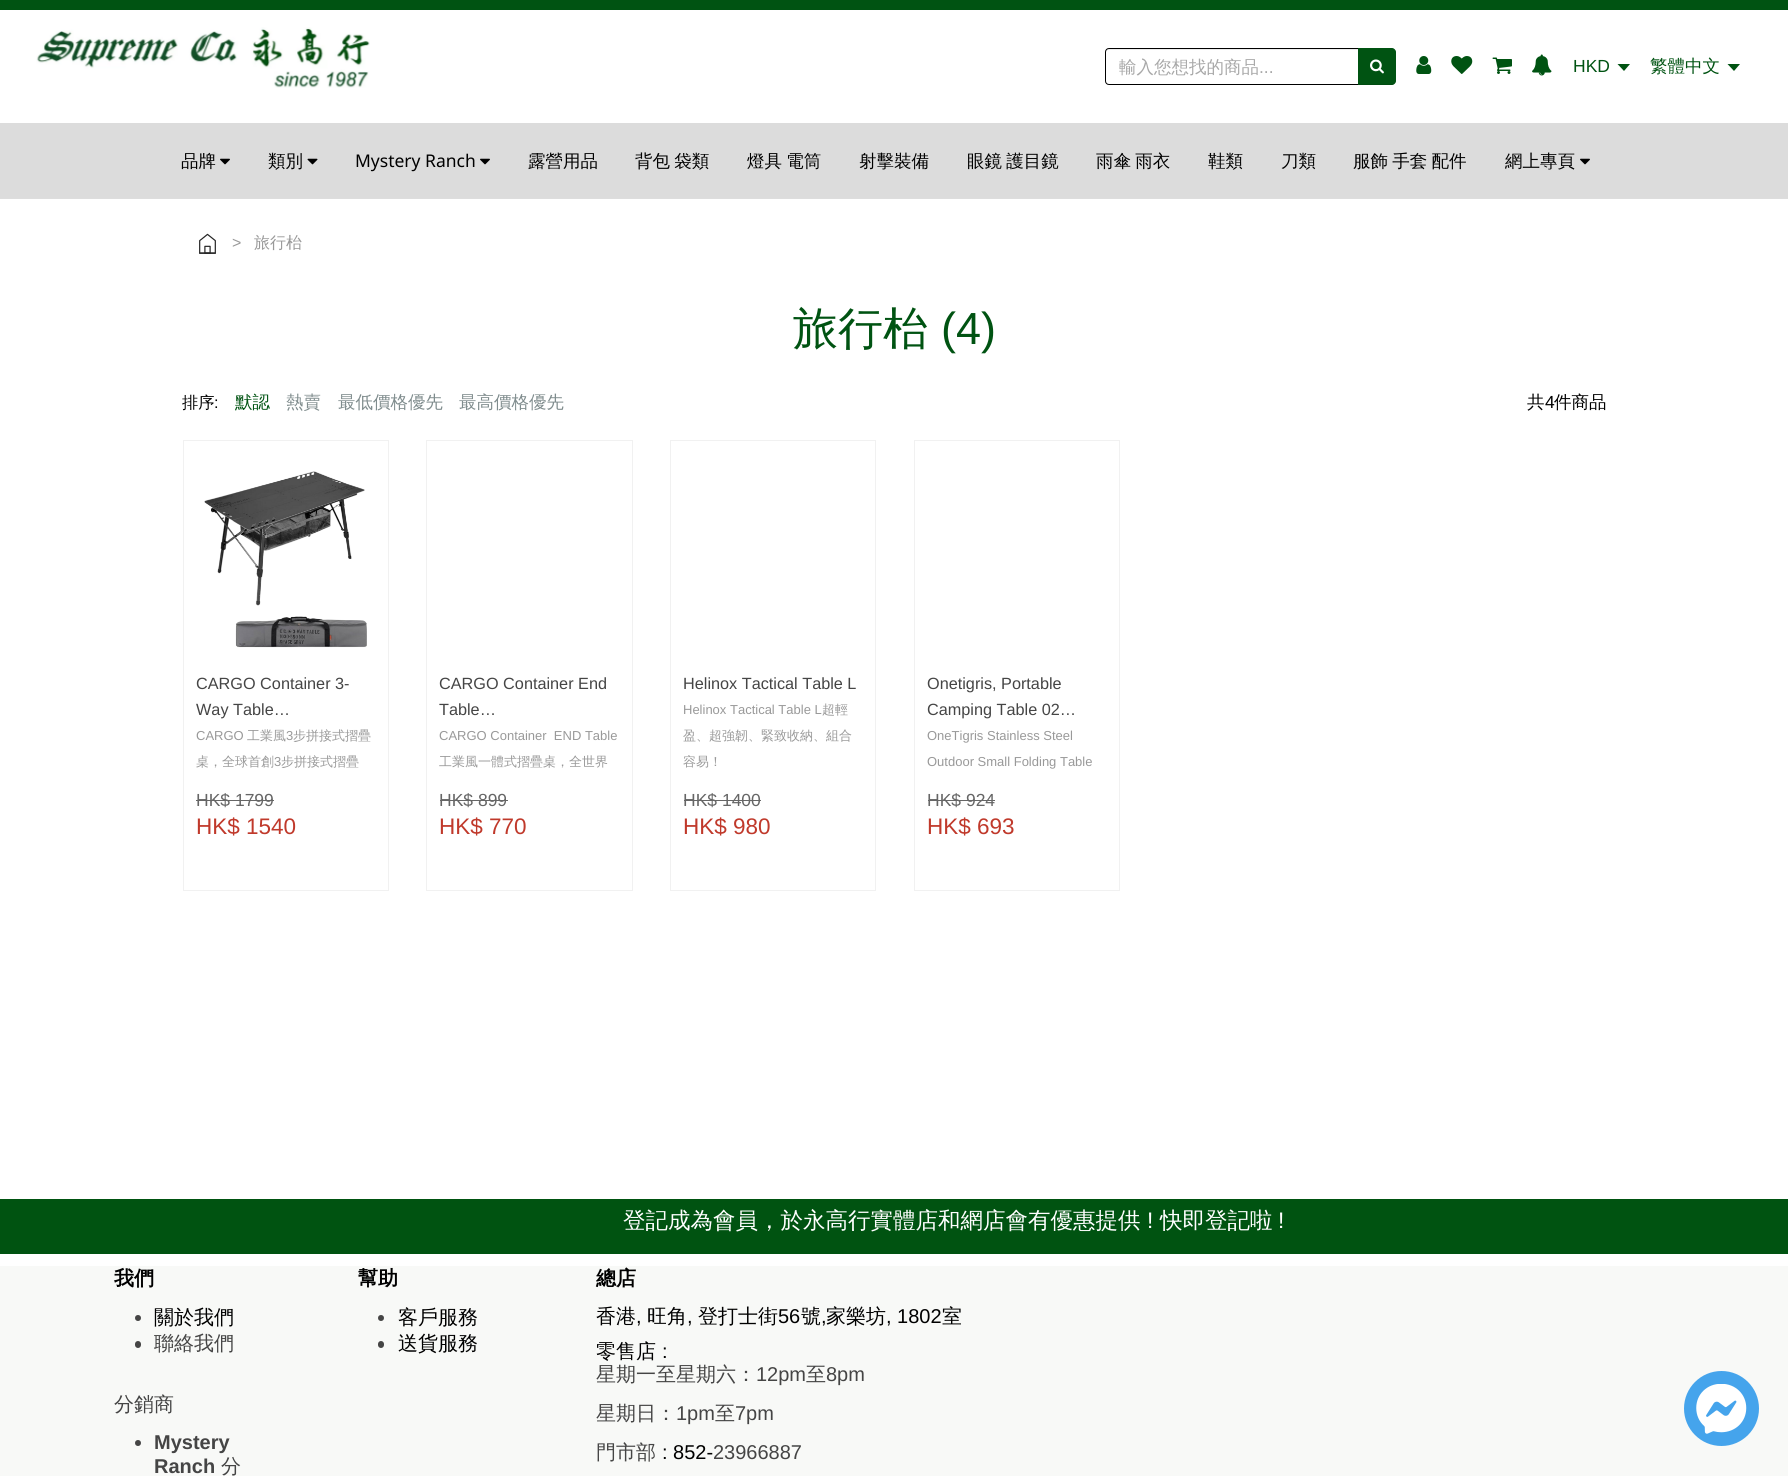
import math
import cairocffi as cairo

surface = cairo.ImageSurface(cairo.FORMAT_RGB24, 1788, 1476)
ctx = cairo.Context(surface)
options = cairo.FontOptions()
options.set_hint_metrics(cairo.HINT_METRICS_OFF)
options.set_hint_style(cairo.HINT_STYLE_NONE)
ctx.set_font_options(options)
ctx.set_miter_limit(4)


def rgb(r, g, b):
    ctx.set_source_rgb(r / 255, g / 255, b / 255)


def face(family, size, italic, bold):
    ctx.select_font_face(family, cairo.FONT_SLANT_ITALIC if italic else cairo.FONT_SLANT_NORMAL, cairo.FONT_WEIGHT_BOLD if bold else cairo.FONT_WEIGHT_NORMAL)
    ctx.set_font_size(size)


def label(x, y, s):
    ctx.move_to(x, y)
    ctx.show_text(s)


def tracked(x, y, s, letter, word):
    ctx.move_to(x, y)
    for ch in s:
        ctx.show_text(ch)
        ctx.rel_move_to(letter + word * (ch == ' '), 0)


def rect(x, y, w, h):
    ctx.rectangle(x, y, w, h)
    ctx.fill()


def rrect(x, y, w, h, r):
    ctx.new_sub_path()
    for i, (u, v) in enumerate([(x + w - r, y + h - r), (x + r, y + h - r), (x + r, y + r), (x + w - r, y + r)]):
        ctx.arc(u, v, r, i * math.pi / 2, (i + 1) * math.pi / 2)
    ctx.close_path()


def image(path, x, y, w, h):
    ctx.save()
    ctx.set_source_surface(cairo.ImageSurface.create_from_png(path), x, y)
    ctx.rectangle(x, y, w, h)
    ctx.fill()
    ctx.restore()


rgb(255, 255, 255)
ctx.paint()
rgb(0, 83, 18)
rect(0, 0, 1788, 10)
rgb(221, 221, 221)
rect(0, 198, 1788, 1)
image('image0.png', 36, 27, 334, 61)
rgb(236, 236, 236)
ctx.new_path()
ctx.move_to(1109, 50)
ctx.line_to(1358, 50)
ctx.line_to(1358, 49)
ctx.line_to(1108, 49)
ctx.line_to(1106, 50)
ctx.line_to(1106, 52)
ctx.curve_to(1106, 51, 1107, 50, 1109, 50)
ctx.close_path()
ctx.fill()
ctx.new_path()
ctx.move_to(1109, 48.5)
ctx.line_to(1358.5, 48.5)
ctx.line_to(1358.5, 84.5)
ctx.line_to(1109, 84.5)
ctx.curve_to(1107, 84.5, 1105.5, 83, 1105.5, 81)
ctx.line_to(1105.5, 52)
ctx.curve_to(1105.5, 50, 1107, 48.5, 1109, 48.5)
ctx.close_path()
rgb(0, 0, 0)
ctx.set_line_width(1)
ctx.stroke()
face('WenQuanYi Zen Hei Medium', 17.5, 0, 0)
rgb(168, 168, 168)
label(1119, 73, '輸入您想找的商品')
face('Liberation Sans', 17.5, 0, 0)
label(1259, 73, '...')
rgb(0, 83, 18)
ctx.new_path()
ctx.move_to(1358, 48)
ctx.line_to(1392, 48)
ctx.curve_to(1394, 48, 1396, 50, 1396, 52)
ctx.line_to(1396, 81)
ctx.curve_to(1396, 83, 1394, 85, 1392, 85)
ctx.line_to(1358, 85)
ctx.close_path()
ctx.fill()
ctx.set_source_rgba(0, 0, 0, 0.1)
ctx.new_path()
ctx.move_to(1358, 84)
ctx.line_to(1358, 85)
ctx.line_to(1392, 85)
ctx.curve_to(1394, 85, 1396, 83, 1396, 81)
ctx.line_to(1396, 80)
ctx.curve_to(1396, 82, 1395, 84, 1392, 84)
ctx.close_path()
ctx.fill()
image('image1.png', 1370, 59, 14, 15)
image('image2.png', 1416, 56, 16, 18)
image('image3.png', 1451, 56, 22, 18)
image('image4.png', 1492, 57, 20, 17)
image('image5.png', 1532, 54, 20, 22)
rgb(0, 83, 18)
label(1573, 72, 'HKD')
ctx.new_path()
ctx.move_to(1617.5, 64)
ctx.line_to(1630, 64)
ctx.line_to(1624, 71)
ctx.close_path()
ctx.fill()
face('WenQuanYi Zen Hei Medium', 17.5, 0, 0)
label(1650, 72, '繁體中文')
ctx.new_path()
ctx.move_to(1727.5, 64)
ctx.line_to(1740, 64)
ctx.line_to(1734, 71)
ctx.close_path()
ctx.fill()
rgb(220, 220, 220)
rect(0, 123, 1788, 75)
rgb(0, 0, 0)
label(181, 167, '品牌')
image('image6.png', 220, 158, 10, 7)
label(268, 167, '類別')
image('image7.png', 307, 158, 11, 7)
face('Noto Sans', 17.5, 0, 0)
label(355, 167, 'Mystery Ranch')
image('image6.png', 480, 158, 10, 7)
face('WenQuanYi Zen Hei Medium', 17.5, 0, 0)
label(528, 167, '露營用品')
tracked(635, 167, '背包 袋類', 0, -1)
tracked(747, 167, '燈具 電筒', 0, -1)
label(859, 167, '射擊裝備')
tracked(967, 167, '眼鏡 護目鏡', 0, -1)
tracked(1096, 167, '雨傘 雨衣', 0, -1)
label(1208, 167, '鞋類')
label(1281, 167, '刀類')
tracked(1353, 167, '服飾 手套 配件', 0, -1)
label(1505, 167, '網上專頁')
image('image6.png', 1580, 158, 10, 7)
image('image8.png', 199, 233, 17, 21)
face('Liberation Sans', 16, 0, 0)
rgb(153, 153, 153)
label(232, 248, '>')
face('WenQuanYi Zen Hei Medium', 16, 0, 0)
label(254, 248, '旅行枱')
face('WenQuanYi Zen Hei Medium', 45, 0, 0)
rgb(0, 83, 18)
label(793, 344, '旅行枱')
face('Liberation Sans', 45, 0, 0)
label(941, 344, '(4)')
face('WenQuanYi Zen Hei Medium', 16.25, 0, 0)
rgb(0, 0, 0)
label(182, 408, '排序')
face('Liberation Sans', 16.25, 0, 0)
label(214, 408, ':')
face('WenQuanYi Zen Hei Medium', 17.5, 0, 0)
rgb(0, 83, 18)
label(235, 408, '默認')
rgb(127, 140, 141)
label(286, 408, '熱賣')
label(338, 408, '最低價格優先')
label(459, 408, '最高價格優先')
rgb(0, 0, 0)
label(1527, 408, '共')
face('Liberation Sans', 17.5, 0, 0)
label(1545, 408, '4')
face('WenQuanYi Zen Hei Medium', 17.5, 0, 0)
label(1554, 408, '件商品')
ctx.rectangle(183.5, 440.5, 205, 450)
rgb(241, 241, 241)
ctx.stroke()
image('image9.png', 204, 471, 163, 177)
face('Liberation Sans', 16.25, 0, 0)
rgb(69, 69, 69)
label(196, 689, 'CARGO Container 3-')
label(196, 715, 'Way Table…')
face('Liberation Sans', 13, 0, 0)
rgb(153, 153, 153)
label(196, 740, 'CARGO')
face('WenQuanYi Zen Hei Medium', 13, 0, 0)
label(247, 740, '工業風')
face('Liberation Sans', 13, 0, 0)
label(286, 740, '3')
face('WenQuanYi Zen Hei Medium', 13, 0, 0)
label(293, 740, '步拼接式摺疊')
label(196, 766, '桌，全球首創')
face('Liberation Sans', 13, 0, 0)
label(274, 766, '3')
face('WenQuanYi Zen Hei Medium', 13, 0, 0)
label(281, 766, '步拼接式摺疊')
face('Liberation Sans', 17.5, 0, 0)
rgb(102, 102, 102)
label(196, 806, 'HK$ 1799')
rect(196, 800, 78, 1)
face('Liberation Sans', 22.5, 0, 0)
rgb(192, 57, 43)
label(196, 834, 'HK$ 1540')
ctx.rectangle(426.5, 440.5, 206, 450)
rgb(241, 241, 241)
ctx.stroke()
face('Liberation Sans', 16.25, 0, 0)
rgb(69, 69, 69)
label(439, 689, 'CARGO Container End')
label(439, 715, 'Table…')
face('Liberation Sans', 13, 0, 0)
rgb(153, 153, 153)
label(439, 740, 'CARGO Container  END Table')
face('WenQuanYi Zen Hei Medium', 13, 0, 0)
label(439, 766, '工業風一體式摺疊桌，全世界')
face('Liberation Sans', 17.5, 0, 0)
rgb(102, 102, 102)
label(439, 806, 'HK$ 899')
rect(440, 800, 68, 1)
face('Liberation Sans', 22.5, 0, 0)
rgb(192, 57, 43)
label(439, 834, 'HK$ 770')
ctx.rectangle(670.5, 440.5, 205, 450)
rgb(241, 241, 241)
ctx.stroke()
face('Liberation Sans', 16.25, 0, 0)
rgb(69, 69, 69)
label(683, 689, 'Helinox Tactical Table L')
face('Liberation Sans', 13, 0, 0)
rgb(153, 153, 153)
label(683, 714, 'Helinox Tactical Table L')
face('WenQuanYi Zen Hei Medium', 13, 0, 0)
label(822, 714, '超輕')
label(683, 740, '盈、超強韌、緊致收納、組合')
label(683, 766, '容易！')
face('Liberation Sans', 17.5, 0, 0)
rgb(102, 102, 102)
label(683, 806, 'HK$ 1400')
rect(684, 800, 77, 1)
face('Liberation Sans', 22.5, 0, 0)
rgb(192, 57, 43)
label(683, 834, 'HK$ 980')
ctx.rectangle(914.5, 440.5, 205, 450)
rgb(241, 241, 241)
ctx.stroke()
face('Liberation Sans', 16.25, 0, 0)
rgb(69, 69, 69)
label(927, 689, 'Onetigris, Portable')
label(927, 715, 'Camping Table 02…')
face('Liberation Sans', 13, 0, 0)
rgb(153, 153, 153)
label(927, 740, 'OneTigris Stainless Steel')
label(927, 766, 'Outdoor Small Folding Table')
face('Liberation Sans', 17.5, 0, 0)
rgb(102, 102, 102)
label(927, 806, 'HK$ 924')
rect(928, 800, 67, 1)
face('Liberation Sans', 22.5, 0, 0)
rgb(192, 57, 43)
label(927, 834, 'HK$ 693')
rgb(0, 83, 17)
rect(0, 1199, 1788, 55)
face('WenQuanYi Zen Hei Medium', 22.5, 0, 0)
rgb(255, 255, 255)
label(623, 1228, '登記成為會員，於永高行實體店和網店會有優惠提供')
face('Liberation Sans', 22.5, 0, 0)
label(1147, 1228, '!')
face('WenQuanYi Zen Hei Medium', 22.5, 0, 0)
label(1160, 1228, '快即登記啦')
face('Liberation Sans', 22.5, 0, 0)
label(1278, 1228, '!')
rgb(248, 249, 247)
rect(0, 1266, 1788, 210)
face('WenQuanYi Zen Hei', 20, 0, 1)
rgb(0, 0, 0)
label(114, 1285, '我們')
rgb(69, 69, 69)
ctx.new_path()
ctx.arc(138, 1318, 3, 0, 2 * math.pi)
ctx.fill()
face('WenQuanYi Zen Hei Medium', 20, 0, 0)
rgb(0, 0, 0)
label(154, 1324, '關於我們')
rgb(69, 69, 69)
rrect(135, 1341, 6, 7, 3)
ctx.fill()
label(154, 1350, '聯絡我們')
label(114, 1411, '分銷商')
ctx.new_path()
ctx.arc(138, 1443, 3, 0, 2 * math.pi)
ctx.fill()
face('Liberation Sans', 20, 0, 1)
label(154, 1449, 'Mystery')
label(154, 1473, 'Ranch')
face('WenQuanYi Zen Hei Medium', 20, 0, 0)
label(221, 1473, '分')
face('WenQuanYi Zen Hei', 20, 0, 1)
rgb(0, 0, 0)
label(358, 1285, '幫助')
rgb(69, 69, 69)
ctx.new_path()
ctx.arc(381, 1318, 3, 0, 2 * math.pi)
ctx.fill()
face('WenQuanYi Zen Hei Medium', 20, 0, 0)
rgb(0, 0, 0)
label(398, 1324, '客戶服務')
rgb(69, 69, 69)
rrect(378, 1341, 6, 7, 3)
ctx.fill()
rgb(0, 0, 0)
label(398, 1350, '送貨服務')
face('WenQuanYi Zen Hei', 20, 0, 1)
label(596, 1285, '總店')
face('WenQuanYi Zen Hei Medium', 20, 0, 0)
label(596, 1323, '香港')
face('Liberation Sans', 20, 0, 0)
label(636, 1323, ',')
face('WenQuanYi Zen Hei Medium', 20, 0, 0)
label(647, 1323, '旺角')
face('Liberation Sans', 20, 0, 0)
label(687, 1323, ',')
face('WenQuanYi Zen Hei Medium', 20, 0, 0)
label(698, 1323, '登打士街')
face('Liberation Sans', 20, 0, 0)
label(778, 1323, '56')
face('WenQuanYi Zen Hei Medium', 20, 0, 0)
label(801, 1323, '號')
face('Liberation Sans', 20, 0, 0)
label(821, 1323, ',')
face('WenQuanYi Zen Hei Medium', 20, 0, 0)
label(826, 1323, '家樂坊')
face('Liberation Sans', 20, 0, 0)
label(886, 1323, ', 1802')
face('WenQuanYi Zen Hei Medium', 20, 0, 0)
label(942, 1323, '室')
label(596, 1358, '零售店')
face('Liberation Sans', 20, 0, 0)
label(662, 1358, ':')
face('WenQuanYi Zen Hei Medium', 20, 0, 0)
rgb(69, 69, 69)
label(596, 1381, '星期一至星期六：')
face('Liberation Sans', 20, 0, 0)
label(756, 1381, '12pm')
face('WenQuanYi Zen Hei Medium', 20, 0, 0)
label(806, 1381, '至')
face('Liberation Sans', 20, 0, 0)
label(826, 1381, '8pm')
face('WenQuanYi Zen Hei Medium', 20, 0, 0)
label(596, 1420, '星期日：')
face('Liberation Sans', 20, 0, 0)
label(676, 1420, '1pm')
face('WenQuanYi Zen Hei Medium', 20, 0, 0)
label(715, 1420, '至')
face('Liberation Sans', 20, 0, 0)
label(735, 1420, '7pm')
face('WenQuanYi Zen Hei Medium', 20, 0, 0)
label(596, 1459, '門市部')
face('Liberation Sans', 20, 0, 0)
rgb(0, 0, 0)
label(662, 1459, ': 852-')
rgb(69, 69, 69)
label(713, 1459, '23966887')
rgb(69, 164, 236)
ctx.new_path()
ctx.arc(1721.5, 1408.5, 37.5, 0, 2 * math.pi)
ctx.fill()
image('image10.png', 1696, 1384, 51, 50)
surface.write_to_png('render.png')
